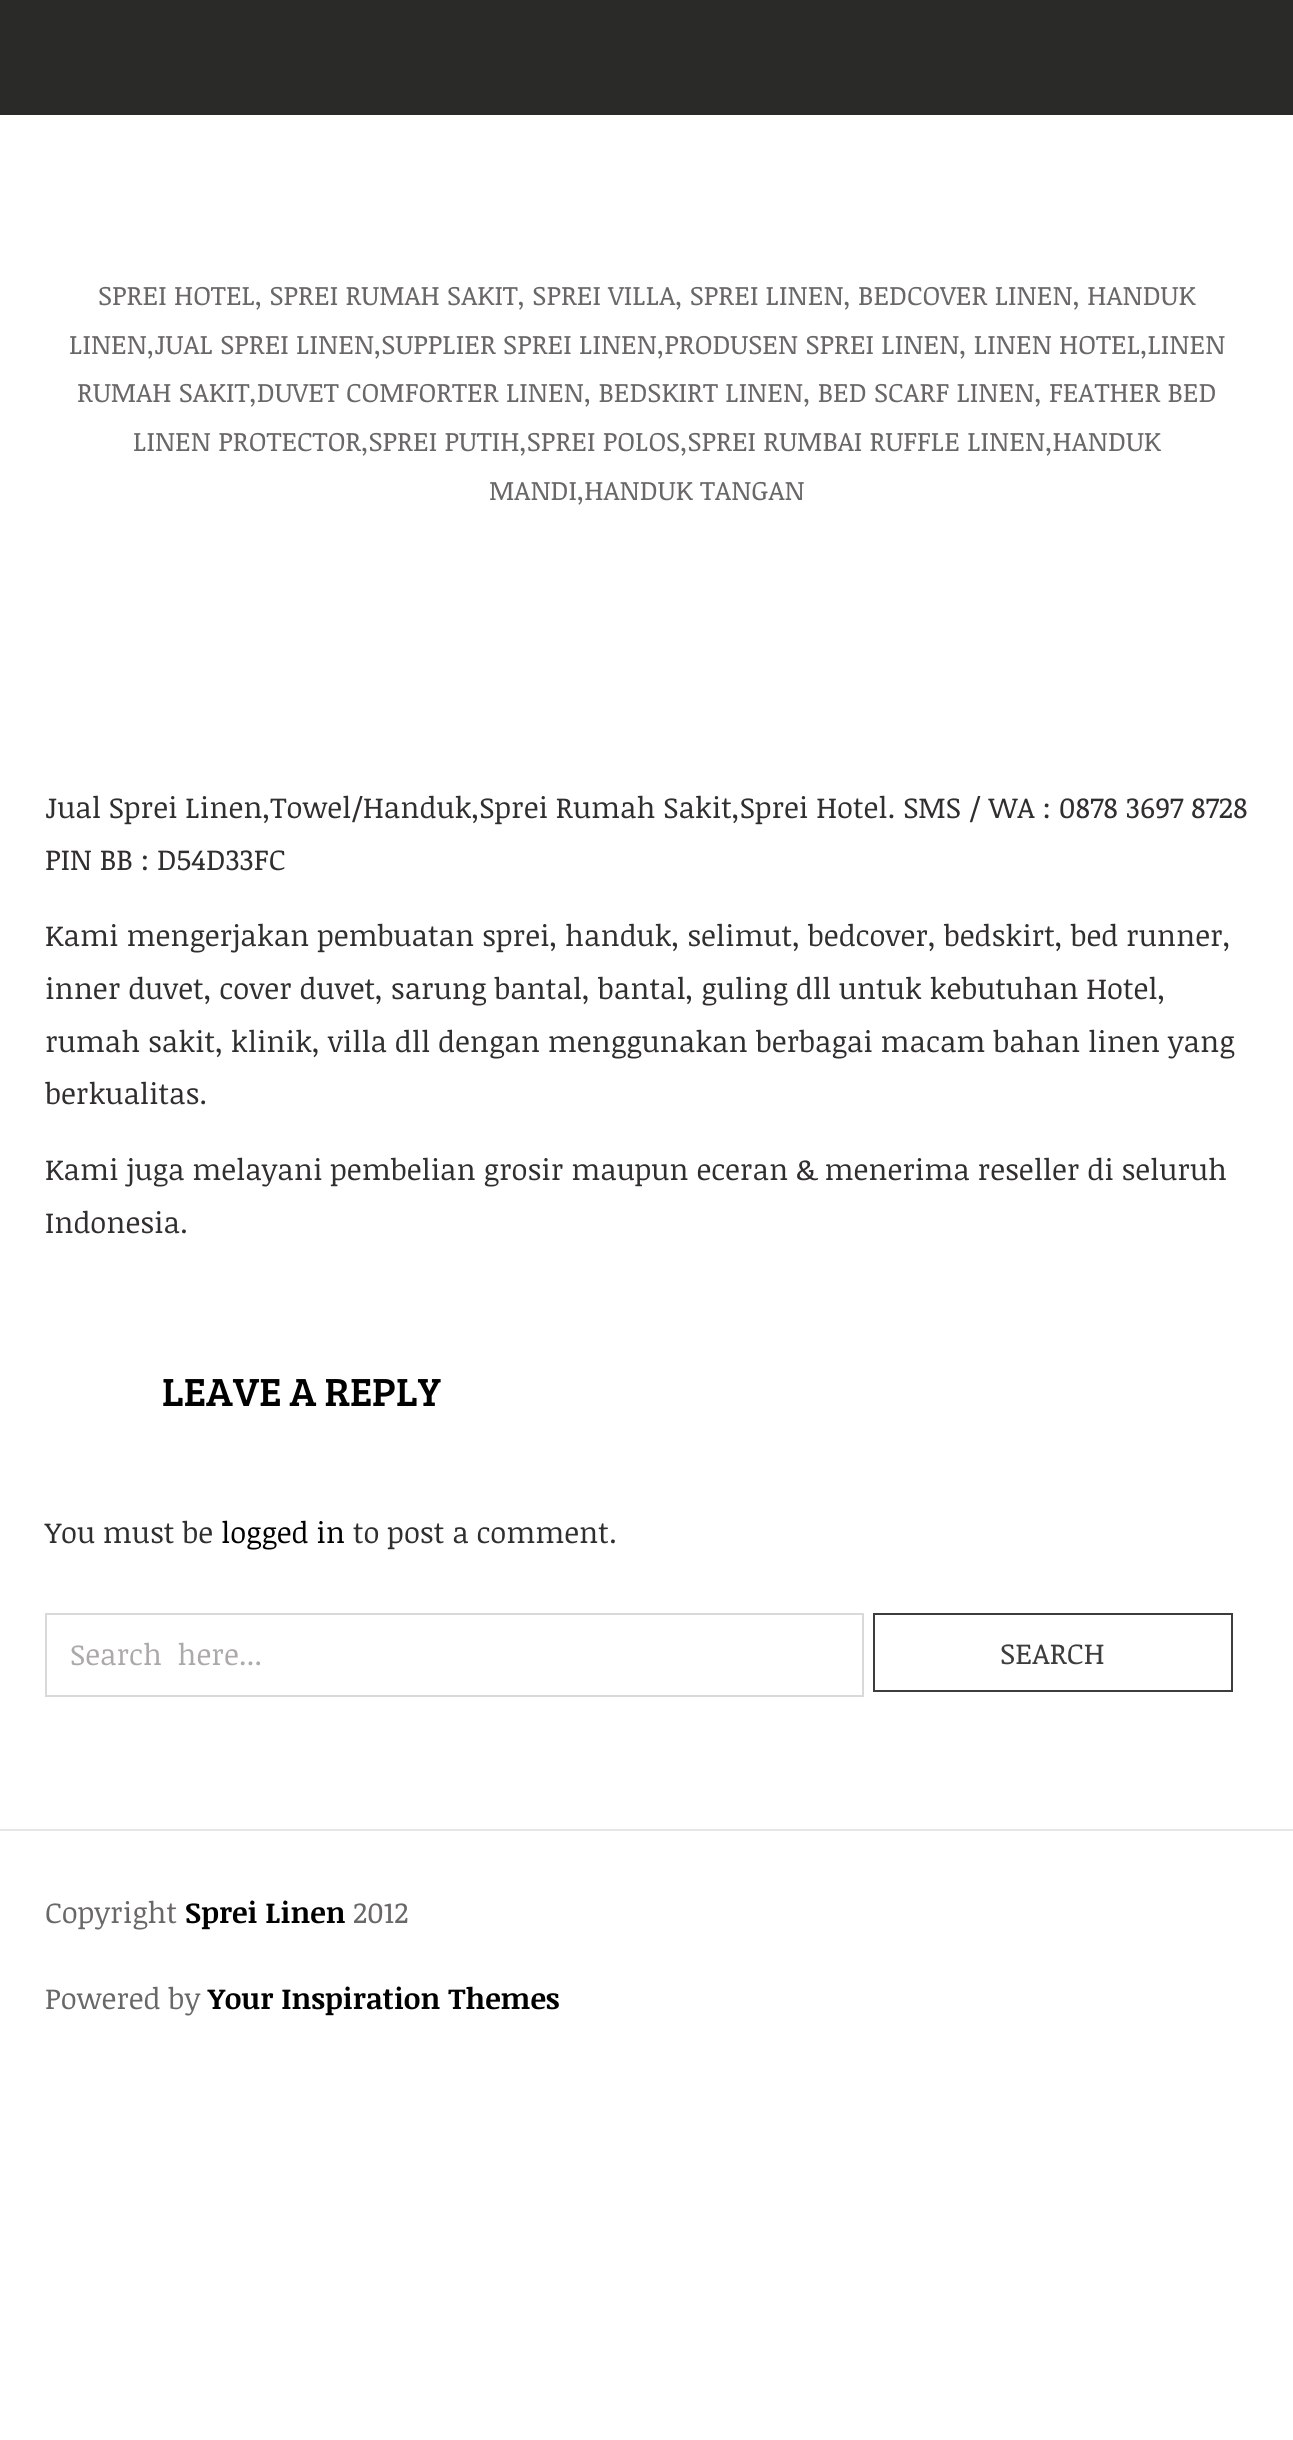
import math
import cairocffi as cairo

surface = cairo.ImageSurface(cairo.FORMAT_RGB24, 1293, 2440)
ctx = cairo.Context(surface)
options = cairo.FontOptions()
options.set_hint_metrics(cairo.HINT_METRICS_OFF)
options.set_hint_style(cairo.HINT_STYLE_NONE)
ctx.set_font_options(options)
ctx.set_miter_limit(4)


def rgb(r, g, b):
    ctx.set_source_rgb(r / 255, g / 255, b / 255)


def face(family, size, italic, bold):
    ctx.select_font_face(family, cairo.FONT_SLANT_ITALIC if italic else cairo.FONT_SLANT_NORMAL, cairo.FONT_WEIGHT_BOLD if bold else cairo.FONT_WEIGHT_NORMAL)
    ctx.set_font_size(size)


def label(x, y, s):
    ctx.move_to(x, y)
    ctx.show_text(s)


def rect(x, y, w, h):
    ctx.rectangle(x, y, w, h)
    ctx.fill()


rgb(255, 255, 255)
ctx.paint()
rgb(42, 42, 41)
rect(0, 0, 1293, 115)
face('Noticia Text', 27, 0, 0)
rgb(105, 103, 103)
label(98, 305, 'SPREI HOTEL, SPREI RUMAH SAKIT, SPREI VILLA, SPREI LINEN, BEDCOVER LINEN, HANDUK')
label(69, 354, 'LINEN,JUAL SPREI LINEN,SUPPLIER SPREI LINEN,PRODUSEN SPREI LINEN, LINEN HOTEL,LINEN')
label(77, 402, 'RUMAH SAKIT,DUVET COMFORTER LINEN, BEDSKIRT LINEN, BED SCARF LINEN, FEATHER BED')
label(133, 451, 'LINEN PROTECTOR,SPREI PUTIH,SPREI POLOS,SPREI RUMBAI RUFFLE LINEN,HANDUK')
label(489, 500, 'MANDI,HANDUK TANGAN')
face('Noticia Text', 29.25, 0, 0)
rgb(48, 46, 46)
label(45, 818, 'Jual Sprei Linen,Towel/Handuk,Sprei Rumah Sakit,Sprei Hotel. SMS / WA : 0878 3697 8728')
label(45, 870, 'PIN BB : D54D33FC')
label(45, 946, 'Kami mengerjakan pembuatan sprei, handuk, selimut, bedcover, bedskirt, bed runner,')
label(45, 999, 'inner duvet, cover duvet, sarung bantal, bantal, guling dll untuk kebutuhan Hotel,')
label(45, 1052, 'rumah sakit, klinik, villa dll dengan menggunakan berbagai macam bahan linen yang')
label(45, 1104, 'berkualitas.')
label(45, 1180, 'Kami juga melayani pembelian grosir maupun eceran & menerima reseller di seluruh')
label(45, 1233, 'Indonesia.')
face('Bree Serif', 40.5, 0, 0)
rgb(0, 0, 0)
label(162, 1406, 'LEAVE A REPLY')
face('Noticia Text', 29.25, 0, 0)
rgb(48, 46, 46)
label(45, 1543, 'You must be')
rgb(0, 0, 0)
label(221, 1543, 'logged in')
rgb(48, 46, 46)
label(353, 1543, 'to post a comment.')
ctx.rectangle(46, 1614, 817, 82)
rgb(218, 217, 217)
ctx.stroke()
rgb(171, 170, 169)
label(70, 1665, 'Search  here...')
ctx.rectangle(874, 1614, 358, 77)
rgb(61, 61, 62)
ctx.stroke()
label(1000, 1664, 'SEARCH')
rgb(230, 230, 230)
rect(0, 1829, 1293, 2)
rgb(105, 103, 103)
label(45, 1923, 'Copyright')
face('Noticia Text', 29.25, 0, 1)
rgb(0, 0, 0)
label(185, 1923, 'Sprei Linen')
face('Noticia Text', 29.25, 0, 0)
rgb(105, 103, 103)
label(353, 1923, '2012')
label(45, 2009, 'Powered by')
face('Noticia Text', 29.25, 0, 1)
rgb(0, 0, 0)
label(208, 2009, 'Your Inspiration Themes')
surface.write_to_png('render.png')
